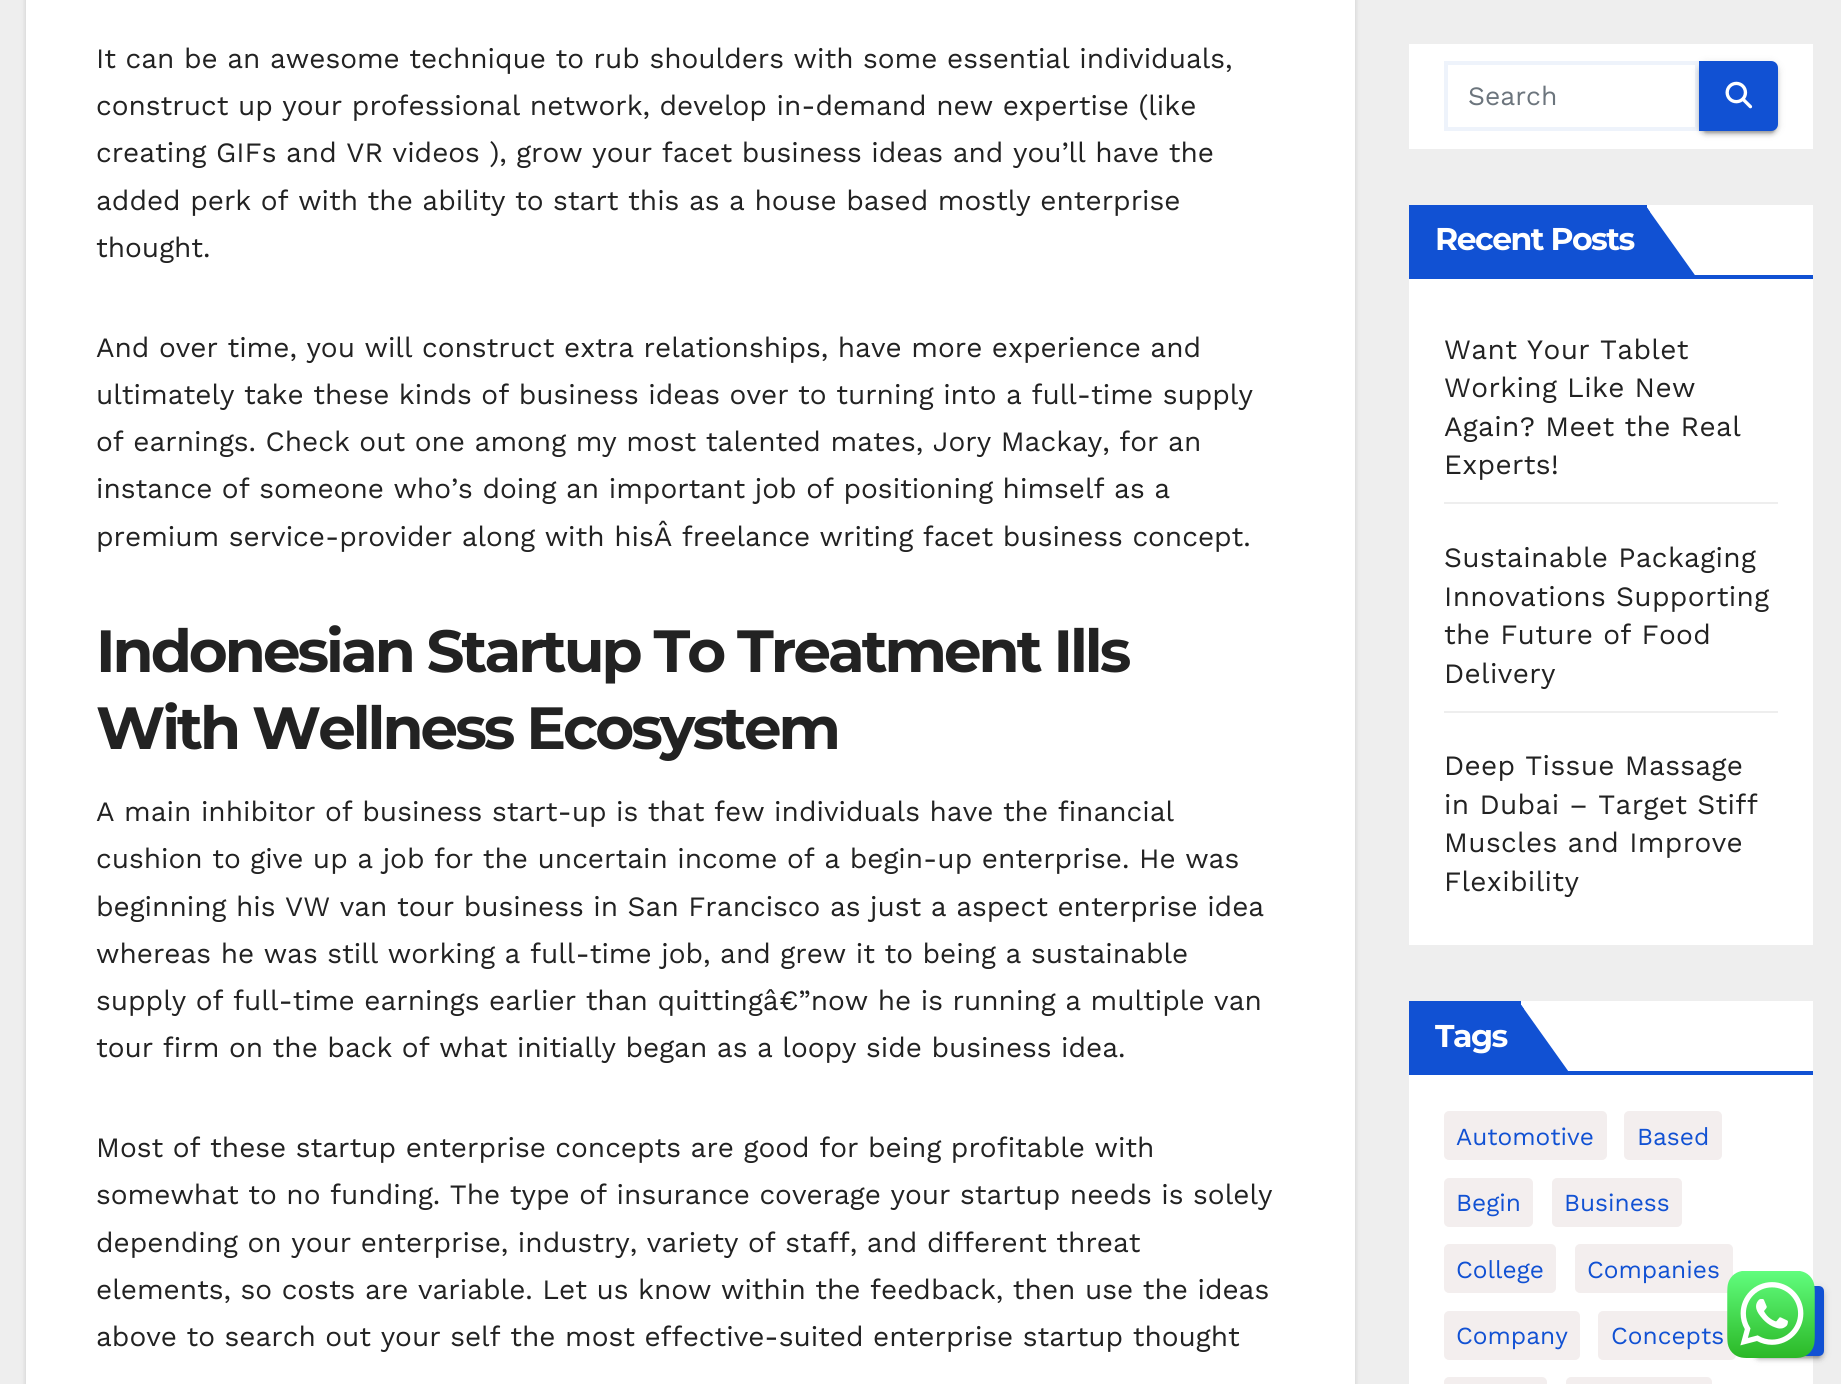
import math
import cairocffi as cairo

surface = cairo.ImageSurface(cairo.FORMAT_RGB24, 1841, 1384)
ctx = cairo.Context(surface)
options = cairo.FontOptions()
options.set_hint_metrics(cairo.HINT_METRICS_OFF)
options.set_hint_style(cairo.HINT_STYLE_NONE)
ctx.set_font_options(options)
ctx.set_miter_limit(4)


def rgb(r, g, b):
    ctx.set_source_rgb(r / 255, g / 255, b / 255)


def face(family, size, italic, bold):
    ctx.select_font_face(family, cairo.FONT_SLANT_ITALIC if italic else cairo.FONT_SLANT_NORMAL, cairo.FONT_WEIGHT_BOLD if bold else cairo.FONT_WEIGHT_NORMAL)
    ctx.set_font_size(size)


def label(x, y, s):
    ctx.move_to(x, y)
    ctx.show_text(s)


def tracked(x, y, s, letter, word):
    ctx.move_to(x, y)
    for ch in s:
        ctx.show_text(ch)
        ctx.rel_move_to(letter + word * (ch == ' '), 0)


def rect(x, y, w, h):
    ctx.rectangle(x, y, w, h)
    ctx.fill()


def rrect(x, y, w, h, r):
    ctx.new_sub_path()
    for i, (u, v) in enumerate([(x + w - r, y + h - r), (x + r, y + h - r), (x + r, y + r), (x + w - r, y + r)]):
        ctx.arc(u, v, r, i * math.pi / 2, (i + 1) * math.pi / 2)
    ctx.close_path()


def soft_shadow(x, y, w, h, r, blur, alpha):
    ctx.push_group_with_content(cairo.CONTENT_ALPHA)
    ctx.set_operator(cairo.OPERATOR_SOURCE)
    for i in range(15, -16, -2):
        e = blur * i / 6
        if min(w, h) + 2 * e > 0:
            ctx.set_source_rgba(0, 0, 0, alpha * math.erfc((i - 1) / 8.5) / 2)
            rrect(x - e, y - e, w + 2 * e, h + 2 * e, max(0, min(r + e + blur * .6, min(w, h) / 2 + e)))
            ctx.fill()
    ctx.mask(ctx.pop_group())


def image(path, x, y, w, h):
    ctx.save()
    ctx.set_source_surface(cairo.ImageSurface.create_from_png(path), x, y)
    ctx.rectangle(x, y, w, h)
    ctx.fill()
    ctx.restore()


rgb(238, 238, 238)
ctx.paint()
rgb(0, 0, 0)
soft_shadow(26, -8, 1329, 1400, 0, 2.5, 0.15)
rgb(255, 255, 255)
rect(26, 0, 1329, 1384)
face('Work Sans', 28, 0, 0)
rgb(34, 34, 34)
label(96, 68, 'It can be an awesome technique to rub shoulders with some essential individuals,')
label(96, 115, 'construct up your professional network, develop in-demand new expertise (like')
label(96, 162, 'creating GIFs and VR videos ), grow your facet business ideas and you’ll have the')
label(96, 210, 'added perk of with the ability to start this as a house based mostly enterprise')
label(96, 257, 'thought.')
label(96, 357, 'And over time, you will construct extra relationships, have more experience and')
label(96, 404, 'ultimately take these kinds of business ideas over to turning into a full-time supply')
label(96, 451, 'of earnings. Check out one among my most talented mates, Jory Mackay, for an')
label(96, 498, 'instance of someone who’s doing an important job of positioning himself as a')
label(96, 546, 'premium service-provider along with hisÂ freelance writing facet business concept.')
face('Montserrat Thin', 59.5, 0, 0)
tracked(96, 672, 'Indonesian Startup To Treatment Ills', -3, 0)
tracked(96, 749, 'With Wellness Ecosystem', -3, 0)
face('Work Sans', 28, 0, 0)
label(96, 821, 'A main inhibitor of business start-up is that few individuals have the financial')
label(96, 868, 'cushion to give up a job for the uncertain income of a begin-up enterprise. He was')
label(96, 916, 'beginning his VW van tour business in San Francisco as just a aspect enterprise idea')
label(96, 963, 'whereas he was still working a full-time job, and grew it to being a sustainable')
label(96, 1010, 'supply of full-time earnings earlier than quittingâ€”now he is running a multiple van')
label(96, 1057, 'tour firm on the back of what initially began as a loopy side business idea.')
label(96, 1157, 'Most of these startup enterprise concepts are good for being profitable with')
label(96, 1204, 'somewhat to no funding. The type of insurance coverage your startup needs is solely')
label(96, 1252, 'depending on your enterprise, industry, variety of staff, and different threat')
label(96, 1299, 'elements, so costs are variable. Let us know within the feedback, then use the ideas')
label(96, 1346, 'above to search out your self the most effective-suited enterprise startup thought')
rgb(255, 255, 255)
rect(1409, 44, 404, 105)
ctx.rectangle(1446, 63, 251, 66)
rgb(238, 243, 251)
ctx.set_line_width(4)
ctx.stroke()
face('Work Sans', 26.5, 0, 0)
rgb(108, 117, 125)
label(1468, 105, 'Search')
rgb(0, 0, 0)
soft_shadow(1699, 63, 79, 70, 7, 4.5, 0.12)
soft_shadow(1703, 70, 72, 63, 4, 1, 0.2)
soft_shadow(1699, 65, 79, 70, 7, 2, 0.14)
rgb(17, 81, 211)
ctx.new_path()
ctx.move_to(1699, 61)
ctx.line_to(1771, 61)
ctx.curve_to(1775, 61, 1778, 64, 1778, 68)
ctx.line_to(1778, 124)
ctx.curve_to(1778, 128, 1775, 131, 1771, 131)
ctx.line_to(1699, 131)
ctx.close_path()
ctx.fill()
image('image0.png', 1725, 81, 28, 28)
rgb(255, 255, 255)
rect(1409, 205, 404, 740)
rgb(17, 81, 211)
rect(1409, 275, 404, 4)
rect(1409, 205, 238, 70)
face('Montserrat Thin', 31.5, 0, 0)
rgb(255, 255, 255)
tracked(1435, 250, 'Recent Posts', -1.5, 0)
rgb(17, 81, 211)
ctx.new_path()
ctx.move_to(1645, 205)
ctx.line_to(1645, 278)
ctx.line_to(1697, 278)
ctx.close_path()
ctx.fill()
ctx.new_path()
ctx.move_to(1646, 206)
ctx.line_to(1645, 205)
ctx.line_to(1645, 278)
ctx.line_to(1650, 273)
ctx.line_to(1650, 212)
ctx.close_path()
ctx.fill()
rgb(238, 238, 238)
rect(1444, 502, 334, 2)
face('Work Sans', 28, 0, 0)
rgb(34, 34, 34)
tracked(1444, 359, 'Want Your Tablet', 0.35, 0)
tracked(1444, 397, 'Working Like New', 0.35, 0)
tracked(1444, 436, 'Again? Meet the Real', 0.35, 0)
tracked(1444, 474, 'Experts!', 0.35, 0)
rgb(238, 238, 238)
rect(1444, 711, 334, 2)
rgb(34, 34, 34)
tracked(1444, 567, 'Sustainable Packaging', 0.35, 0)
tracked(1444, 606, 'Innovations Supporting', 0.35, 0)
tracked(1444, 644, 'the Future of Food', 0.35, 0)
tracked(1444, 683, 'Delivery', 0.35, 0)
tracked(1444, 775, 'Deep Tissue Massage', 0.35, 0)
tracked(1444, 814, 'in Dubai – Target Stiff', 0.35, 0)
tracked(1444, 852, 'Muscles and Improve', 0.35, 0)
tracked(1444, 891, 'Flexibility', 0.35, 0)
rgb(255, 255, 255)
rect(1409, 1001, 404, 383)
rgb(17, 81, 211)
rect(1409, 1071, 404, 4)
rect(1409, 1001, 112, 70)
face('Montserrat Thin', 31.5, 0, 0)
rgb(255, 255, 255)
tracked(1435, 1047, 'Tags', -1.5, 0)
rgb(17, 81, 211)
ctx.new_path()
ctx.move_to(1519, 1075)
ctx.line_to(1519, 1002)
ctx.line_to(1571, 1075)
ctx.close_path()
ctx.fill()
ctx.new_path()
ctx.move_to(1519, 1074)
ctx.line_to(1524, 1069)
ctx.line_to(1524, 1009)
ctx.line_to(1519, 1002)
ctx.close_path()
ctx.fill()
rgb(243, 238, 238)
rrect(1445, 1112, 161, 47, 4)
ctx.fill_preserve()
ctx.set_line_width(2)
ctx.stroke()
face('Work Sans', 24.5, 0, 0)
rgb(17, 81, 211)
label(1456, 1145, 'Automotive')
rgb(243, 238, 238)
rrect(1625, 1112, 96, 47, 4)
ctx.fill_preserve()
ctx.stroke()
rgb(17, 81, 211)
label(1637, 1145, 'Based')
rgb(243, 238, 238)
rrect(1445, 1179, 87, 47, 4)
ctx.fill_preserve()
ctx.stroke()
rgb(17, 81, 211)
label(1456, 1211, 'Begin')
rgb(243, 238, 238)
rrect(1553, 1179, 128, 47, 4)
ctx.fill_preserve()
ctx.stroke()
rgb(17, 81, 211)
label(1564, 1211, 'Business')
rgb(243, 238, 238)
rrect(1445, 1245, 110, 47, 4)
ctx.fill_preserve()
ctx.stroke()
rgb(17, 81, 211)
label(1456, 1278, 'College')
rgb(243, 238, 238)
rrect(1576, 1245, 156, 47, 4)
ctx.fill_preserve()
ctx.stroke()
rgb(17, 81, 211)
label(1587, 1278, 'Companies')
rgb(243, 238, 238)
rrect(1445, 1312, 134, 47, 4)
ctx.fill_preserve()
ctx.stroke()
rgb(17, 81, 211)
label(1456, 1344, 'Company')
rgb(243, 238, 238)
rrect(1599, 1312, 136, 47, 4)
ctx.fill_preserve()
ctx.stroke()
rgb(17, 81, 211)
label(1611, 1344, 'Concepts')
rgb(243, 238, 238)
rrect(1445, 1378, 101, 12, 4)
ctx.fill_preserve()
ctx.stroke()
rrect(1567, 1378, 144, 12, 4)
ctx.fill_preserve()
ctx.stroke()
rgb(0, 0, 0)
soft_shadow(1754, 1288, 70, 70, 5, 4.5, 0.12)
soft_shadow(1757, 1295, 63, 63, 2, 1, 0.2)
soft_shadow(1754, 1290, 70, 70, 5, 2, 0.14)
rgb(17, 81, 211)
rrect(1756, 1288, 66, 66, 3)
ctx.fill_preserve()
ctx.set_line_width(4)
ctx.stroke()
image('image1.png', 1727, 1271, 88, 87)
surface.write_to_png('render.png')
